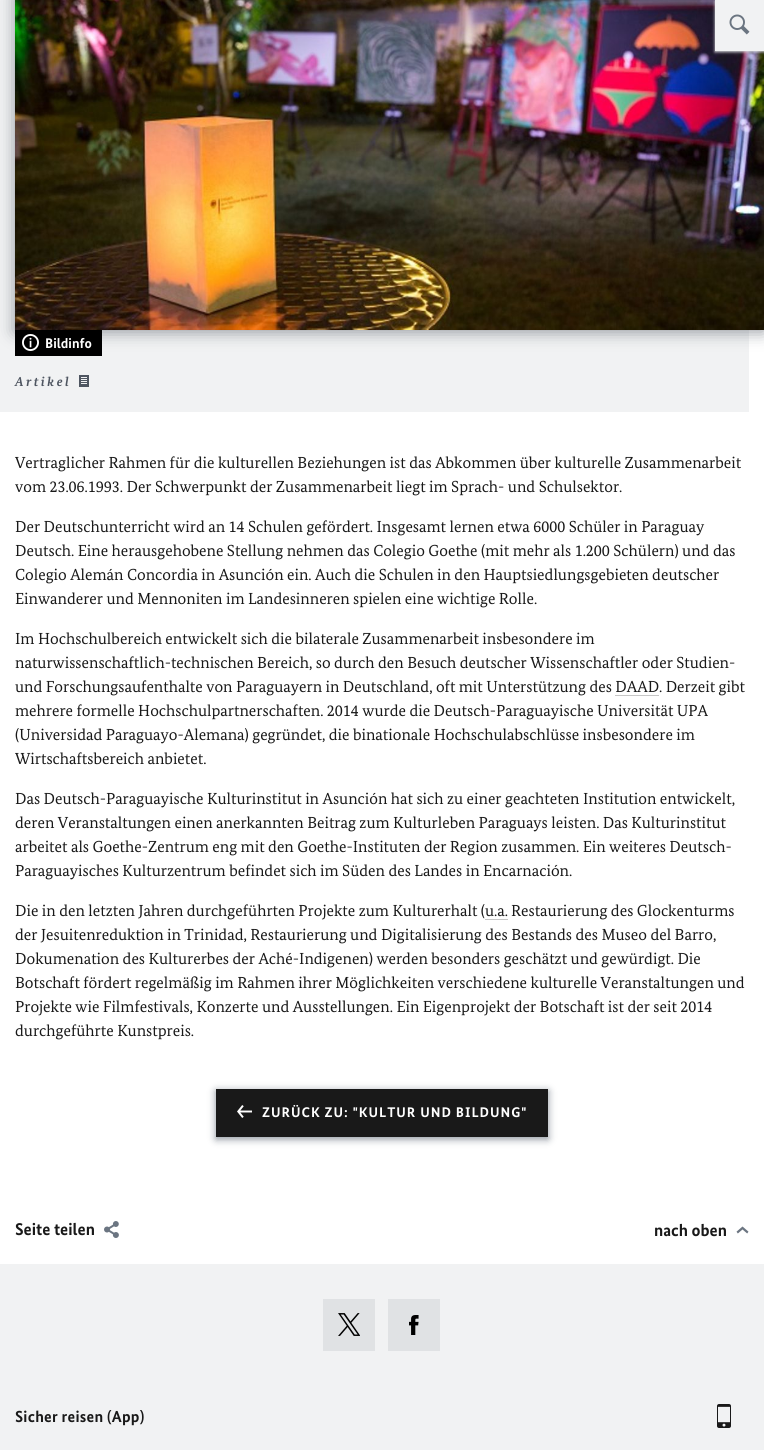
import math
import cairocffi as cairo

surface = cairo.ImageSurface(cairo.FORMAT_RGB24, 764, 1450)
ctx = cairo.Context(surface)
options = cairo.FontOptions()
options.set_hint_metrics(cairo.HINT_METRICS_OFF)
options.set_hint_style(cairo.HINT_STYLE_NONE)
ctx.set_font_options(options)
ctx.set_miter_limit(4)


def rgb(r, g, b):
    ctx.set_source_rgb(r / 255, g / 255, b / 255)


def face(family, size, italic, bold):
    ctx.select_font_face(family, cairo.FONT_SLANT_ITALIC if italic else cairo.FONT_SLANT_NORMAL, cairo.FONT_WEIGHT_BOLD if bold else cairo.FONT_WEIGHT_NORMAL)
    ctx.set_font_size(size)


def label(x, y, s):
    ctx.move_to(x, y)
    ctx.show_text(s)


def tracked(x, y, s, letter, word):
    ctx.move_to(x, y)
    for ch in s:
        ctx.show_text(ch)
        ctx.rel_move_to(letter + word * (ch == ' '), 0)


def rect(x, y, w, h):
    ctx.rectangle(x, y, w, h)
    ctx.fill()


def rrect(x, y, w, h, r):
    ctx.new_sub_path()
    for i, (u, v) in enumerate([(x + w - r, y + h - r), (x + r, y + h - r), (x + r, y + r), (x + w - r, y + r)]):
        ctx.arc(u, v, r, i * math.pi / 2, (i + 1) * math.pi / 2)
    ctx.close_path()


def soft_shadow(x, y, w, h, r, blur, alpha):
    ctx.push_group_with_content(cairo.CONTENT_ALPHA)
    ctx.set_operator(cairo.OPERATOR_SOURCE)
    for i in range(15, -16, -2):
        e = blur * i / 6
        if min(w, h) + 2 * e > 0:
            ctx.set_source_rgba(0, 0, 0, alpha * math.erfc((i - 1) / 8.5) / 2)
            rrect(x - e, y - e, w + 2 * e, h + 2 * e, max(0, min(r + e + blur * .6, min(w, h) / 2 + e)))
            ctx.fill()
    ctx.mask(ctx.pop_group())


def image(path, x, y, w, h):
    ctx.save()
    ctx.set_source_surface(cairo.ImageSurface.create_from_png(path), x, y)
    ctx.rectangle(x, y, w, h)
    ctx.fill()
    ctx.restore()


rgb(255, 255, 255)
ctx.paint()
rgb(241, 242, 243)
rect(0, 0, 15, 412)
rect(15, 330, 734, 82)
rgb(79, 86, 97)
soft_shadow(15, -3, 749, 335, 0, 8, 0.6)
image('image1.png', 15, 0, 749, 330)
rgb(224, 226, 228)
soft_shadow(715, 1, 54, 51, 0, 1.5, 1)
rgb(241, 242, 243)
rect(715, 0, 49, 51)
image('image0.png', 729, 14, 21, 21)
rgb(0, 0, 0)
rect(15, 330, 87, 26)
image('image2.png', 22, 334, 17, 17)
face('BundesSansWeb', 14, 0, 1)
rgb(255, 255, 255)
label(45, 348, 'Bildinfo')
face('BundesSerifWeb', 13, 1, 1)
rgb(79, 86, 97)
tracked(15, 386, 'Artikel', 2.5, 0)
image('image3.png', 79, 375, 10, 12)
face('BundesSerifWeb', 16, 0, 0)
rgb(25, 25, 25)
label(15, 468, 'Vertraglicher Rahmen für die kulturellen Beziehungen ist das Abkommen über kulturelle Zusammenarbeit')
label(15, 492, 'vom 23.06.1993. Der Schwerpunkt der Zusammenarbeit liegt im Sprach- und Schulsektor.')
label(15, 532, 'Der Deutschunterricht wird an 14 Schulen gefördert. Insgesamt lernen etwa 6000 Schüler in Paraguay')
label(15, 556, 'Deutsch. Eine herausgehobene Stellung nehmen das Colegio Goethe (mit mehr als 1.200 Schülern) und das')
label(15, 580, 'Colegio Alemán Concordia in Asunción ein. Auch die Schulen in den Hauptsiedlungsgebieten deutscher')
label(15, 604, 'Einwanderer und Mennoniten im Landesinneren spielen eine wichtige Rolle.')
label(15, 644, 'Im Hochschulbereich entwickelt sich die bilaterale Zusammenarbeit insbesondere im')
label(15, 668, 'naturwissenschaftlich-technischen Bereich, so durch den Besuch deutscher Wissenschaftler oder Studien-')
label(15, 692, 'und Forschungsaufenthalte von Paraguayern in Deutschland, oft mit Unterstützung des DAAD')
label(659, 692, '. Derzeit gibt')
rgb(198, 198, 198)
rect(615, 695, 44, 1)
rgb(25, 25, 25)
label(15, 716, 'mehrere formelle Hochschulpartnerschaften. 2014 wurde die Deutsch-Paraguayische Universität UPA')
label(15, 740, '(Universidad Paraguayo-Alemana) gegründet, die binationale Hochschulabschlüsse insbesondere im')
label(15, 764, 'Wirtschaftsbereich anbietet.')
label(15, 804, 'Das Deutsch-Paraguayische Kulturinstitut in Asunción hat sich zu einer geachteten Institution entwickelt,')
label(15, 828, 'deren Veranstaltungen einen anerkannten Beitrag zum Kulturleben Paraguays leisten. Das Kulturinstitut')
label(15, 852, 'arbeitet als Goethe-Zentrum eng mit den Goethe-Instituten der Region zusammen. Ein weiteres Deutsch-')
label(15, 876, 'Paraguayisches Kulturzentrum befindet sich im Süden des Landes in Encarnación.')
label(15, 916, 'Die in den letzten Jahren durchgeführten Projekte zum Kulturerhalt (u.a.')
label(511, 916, 'Restaurierung des Glockenturms')
rgb(198, 198, 198)
rect(485, 919, 23, 1)
rgb(25, 25, 25)
label(15, 940, 'der Jesuitenreduktion in Trinidad, Restaurierung und Digitalisierung des Bestands des Museo del Barro,')
label(15, 964, 'Dokumenation des Kulturerbes der Aché-Indigenen) werden besonders geschätzt und gewürdigt. Die')
label(15, 988, 'Botschaft fördert regelmäßig im Rahmen ihrer Möglichkeiten verschiedene kulturelle Veranstaltungen und')
label(15, 1012, 'Projekte wie Filmfestivals, Konzerte und Ausstellungen. Ein Eigenprojekt der Botschaft ist der seit 2014')
label(15, 1036, 'durchgeführte Kunstpreis.')
rgb(137, 145, 154)
soft_shadow(216, 1091, 332, 48, 0, 4, 1)
rgb(25, 25, 25)
rect(216, 1089, 332, 48)
image('image4.png', 237, 1105, 15, 13)
face('BundesSansWeb', 14, 0, 1)
rgb(255, 255, 255)
tracked(262, 1117, 'ZURÜCK ZU: "KULTUR UND BILDUNG"', 1, 0)
face('BundesSansWeb', 17, 0, 1)
rgb(25, 25, 25)
label(15, 1235, 'Seite teilen')
image('image5.png', 104, 1221, 15, 17)
label(654, 1236, 'nach oben')
image('image6.png', 736, 1226, 13, 8)
rgb(241, 242, 243)
rect(0, 1264, 764, 186)
rgb(224, 226, 228)
rect(323, 1299, 52, 52)
image('image7.png', 338, 1313, 22, 23)
rect(388, 1299, 52, 52)
image('image8.png', 409, 1315, 10, 20)
face('BundesSansWeb', 16, 0, 1)
rgb(25, 25, 25)
tracked(15, 1422, 'Sicher reisen (App)', 0.25, 0)
image('image9.png', 717, 1404, 14, 24)
surface.write_to_png('render.png')
